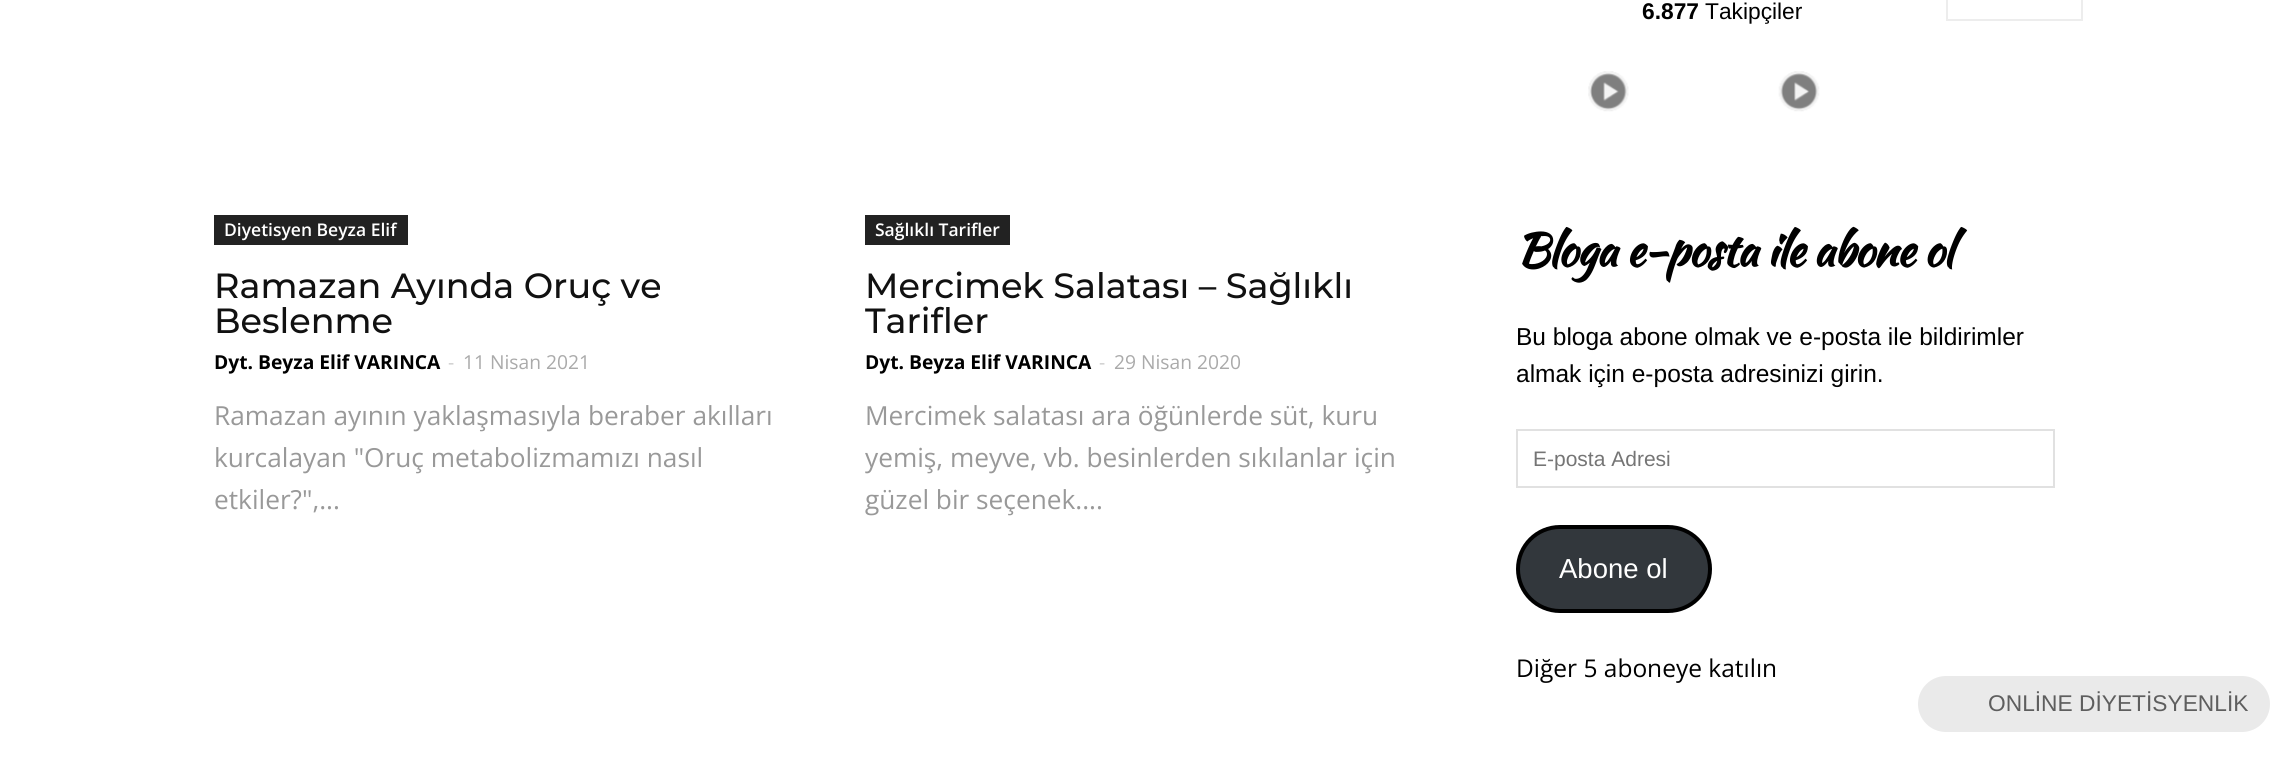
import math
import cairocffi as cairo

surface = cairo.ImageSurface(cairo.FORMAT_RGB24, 2296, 757)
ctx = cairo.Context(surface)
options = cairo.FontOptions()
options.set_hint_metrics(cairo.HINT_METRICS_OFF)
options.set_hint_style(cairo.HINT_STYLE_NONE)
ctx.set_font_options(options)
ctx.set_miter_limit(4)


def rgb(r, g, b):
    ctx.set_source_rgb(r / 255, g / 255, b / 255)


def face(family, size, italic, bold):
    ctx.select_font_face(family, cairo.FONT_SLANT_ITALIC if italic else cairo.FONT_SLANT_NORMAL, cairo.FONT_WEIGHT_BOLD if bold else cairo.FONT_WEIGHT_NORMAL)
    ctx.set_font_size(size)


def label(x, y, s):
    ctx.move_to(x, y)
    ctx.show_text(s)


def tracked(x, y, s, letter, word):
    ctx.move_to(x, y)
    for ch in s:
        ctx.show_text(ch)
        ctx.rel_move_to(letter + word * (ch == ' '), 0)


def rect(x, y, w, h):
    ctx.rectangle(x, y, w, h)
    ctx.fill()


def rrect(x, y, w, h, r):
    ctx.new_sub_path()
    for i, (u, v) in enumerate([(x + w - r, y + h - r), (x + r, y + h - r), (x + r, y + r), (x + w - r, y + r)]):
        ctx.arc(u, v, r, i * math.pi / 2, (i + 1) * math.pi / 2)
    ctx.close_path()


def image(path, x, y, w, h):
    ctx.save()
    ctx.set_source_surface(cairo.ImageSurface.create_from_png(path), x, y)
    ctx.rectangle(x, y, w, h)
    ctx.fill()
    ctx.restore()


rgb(255, 255, 255)
ctx.paint()
rgb(34, 34, 34)
rect(214, 215, 194, 30)
face('Open Sans SemiBold', 17.5, 0, 0)
rgb(255, 255, 255)
label(224, 236, 'Diyetisyen Beyza Elif')
face('Montserrat Medium', 35, 0, 0)
rgb(17, 17, 17)
label(214, 298, 'Ramazan Ayında Oruç ve')
label(214, 333, 'Beslenme')
face('Open Sans', 19.25, 0, 1)
rgb(0, 0, 0)
label(214, 369, 'Dyt. Beyza Elif VARINCA')
face('Open Sans', 19.25, 0, 0)
rgb(204, 204, 204)
label(448, 369, '-')
rgb(170, 170, 170)
label(463, 369, '11 Nisan 2021')
face('Open Sans', 26.25, 0, 0)
rgb(153, 153, 153)
label(214, 425, 'Ramazan ayının yaklaşmasıyla beraber akılları')
label(214, 467, 'kurcalayan "Oruç metabolizmamızı nasıl')
label(214, 509, 'etkiler?",...')
rgb(34, 34, 34)
rect(865, 215, 145, 30)
face('Open Sans SemiBold', 17.5, 0, 0)
rgb(255, 255, 255)
label(875, 236, 'Sağlıklı Tarifler')
face('Montserrat Medium', 35, 0, 0)
rgb(17, 17, 17)
label(865, 298, 'Mercimek Salatası – Sağlıklı')
label(865, 333, 'Tarifler')
face('Open Sans', 19.25, 0, 1)
rgb(0, 0, 0)
label(865, 369, 'Dyt. Beyza Elif VARINCA')
face('Open Sans', 19.25, 0, 0)
rgb(204, 204, 204)
label(1099, 369, '-')
rgb(170, 170, 170)
label(1114, 369, '29 Nisan 2020')
face('Open Sans', 26.25, 0, 0)
rgb(153, 153, 153)
label(865, 425, 'Mercimek salatası ara öğünlerde süt, kuru')
label(865, 467, 'yemiş, meyve, vb. besinlerden sıkılanlar için')
label(865, 509, 'güzel bir seçenek....')
face('Liberation Sans', 22.75, 0, 1)
rgb(0, 0, 0)
label(1642, 19, '6.877')
face('Liberation Sans', 22.75, 0, 0)
label(1705, 19, 'Takipçiler')
ctx.rectangle(1947, -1, 135, 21)
rgb(237, 237, 237)
ctx.stroke()
image('image0.png', 1588, 71, 41, 41)
image('image1.png', 1778, 71, 42, 41)
face('Kaushan Script', 45.5, 0, 1)
rgb(0, 0, 0)
tracked(1516, 266, 'Bloga e-posta ile abone ol', -1.05, 0)
face('Liberation Sans', 24.5, 0, 0)
label(1516, 345, 'Bu bloga abone olmak ve e-posta ile bildirimler')
label(1516, 382, 'almak için e-posta adresinizi girin.')
ctx.rectangle(1517, 430, 537, 57)
rgb(225, 225, 225)
ctx.stroke()
face('Liberation Sans', 21, 0, 0)
rgb(117, 117, 117)
label(1533, 466, 'E-posta Adresi')
rgb(50, 55, 60)
rrect(1518, 527, 192, 84, 42)
ctx.fill_preserve()
rgb(0, 0, 0)
ctx.set_line_width(4)
ctx.stroke()
face('Liberation Sans', 27.5, 0, 0)
rgb(255, 255, 255)
label(1559, 578, 'Abone ol')
face('Open Sans', 24.5, 0, 0)
rgb(0, 0, 0)
label(1516, 677, 'Diğer 5 aboneye katılın')
rgb(234, 234, 234)
rrect(1918, 676, 352, 56, 28)
ctx.fill()
face('Liberation Sans', 22.75, 0, 0)
rgb(94, 94, 94)
label(1988, 711, 'ONLİNE DİYETİSYENLİK')
surface.write_to_png('render.png')
